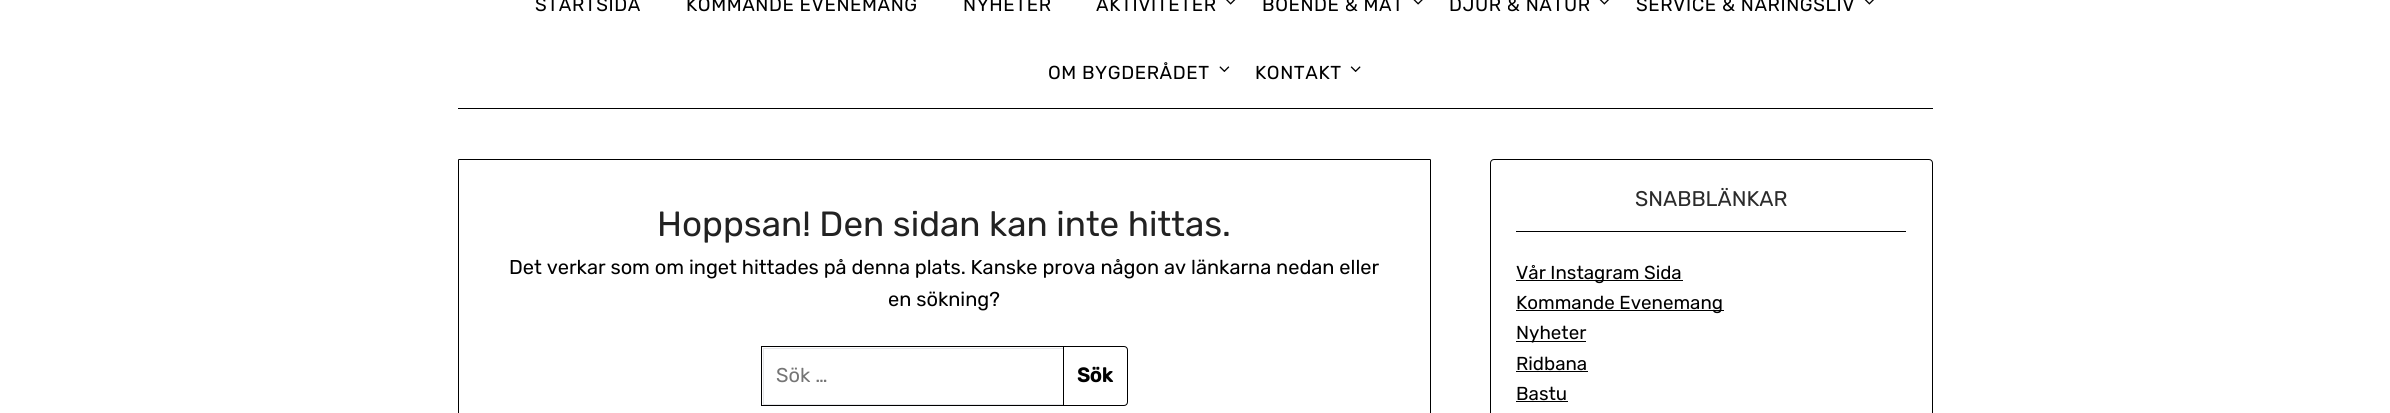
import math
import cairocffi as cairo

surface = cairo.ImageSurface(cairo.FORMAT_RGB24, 2390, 413)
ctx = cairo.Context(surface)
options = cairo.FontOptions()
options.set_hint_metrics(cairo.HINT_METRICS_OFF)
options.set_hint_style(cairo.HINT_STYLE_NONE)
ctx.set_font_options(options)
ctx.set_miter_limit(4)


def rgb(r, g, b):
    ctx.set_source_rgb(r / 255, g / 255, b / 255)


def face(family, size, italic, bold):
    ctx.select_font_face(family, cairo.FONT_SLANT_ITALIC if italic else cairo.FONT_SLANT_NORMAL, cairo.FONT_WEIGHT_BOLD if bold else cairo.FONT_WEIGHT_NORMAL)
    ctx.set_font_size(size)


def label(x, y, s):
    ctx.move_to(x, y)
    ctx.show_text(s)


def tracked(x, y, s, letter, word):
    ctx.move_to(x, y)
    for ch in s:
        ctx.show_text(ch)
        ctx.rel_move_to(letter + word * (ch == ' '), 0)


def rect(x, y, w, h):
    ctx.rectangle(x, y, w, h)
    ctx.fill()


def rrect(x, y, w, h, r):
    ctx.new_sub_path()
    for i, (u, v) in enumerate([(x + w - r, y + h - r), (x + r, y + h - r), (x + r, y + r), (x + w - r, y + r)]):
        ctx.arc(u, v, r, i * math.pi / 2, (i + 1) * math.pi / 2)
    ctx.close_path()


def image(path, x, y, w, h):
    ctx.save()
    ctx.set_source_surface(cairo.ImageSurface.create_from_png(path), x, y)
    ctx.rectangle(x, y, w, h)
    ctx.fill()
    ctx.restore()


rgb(255, 255, 255)
ctx.paint()
rgb(0, 0, 0)
rect(458, 108, 1475, 1)
face('Rubik', 18.75, 0, 0)
tracked(535, 11, 'STARTSIDA', 0.6, 0)
tracked(686, 11, 'KOMMANDE EVENEMANG', 0.6, 0)
tracked(963, 11, 'NYHETER', 0.6, 0)
tracked(1096, 11, 'AKTIVITETER', 0.6, 0)
image('image0.png', 1226, 0, 10, 5)
tracked(1262, 11, 'BOENDE & MAT', 0.6, 0)
image('image1.png', 1413, 0, 10, 5)
tracked(1449, 11, 'DJUR & NATUR', 0.6, 0)
image('image2.png', 1599, 0, 10, 5)
tracked(1636, 11, 'SERVICE & NÄRINGSLIV', 0.6, 0)
image('image2.png', 1864, 0, 10, 5)
tracked(1048, 79, 'OM BYGDERÅDET', 0.6, 0)
image('image3.png', 1219, 66, 11, 6)
tracked(1255, 79, 'KONTAKT', 0.6, 0)
image('image4.png', 1350, 66, 11, 6)
rrect(458.5, 159.5, 972, 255, 0.5)
ctx.set_line_width(1)
ctx.stroke()
face('Rubik', 35, 0, 0)
rgb(34, 34, 34)
label(657, 236, 'Hoppsan! Den sidan kan inte hittas.')
face('Rubik', 20, 0, 0)
rgb(0, 0, 0)
label(509, 274, 'Det verkar som om inget hittades på denna plats. Kanske prova någon av länkarna nedan eller')
label(888, 306, 'en sökning?')
rect(761, 346, 303, 1)
rect(761, 405, 303, 1)
rect(761, 346, 1, 60)
ctx.rectangle(763.5, 348.5, 300, 56)
rgb(229, 230, 233)
ctx.stroke()
rgb(117, 117, 117)
label(776, 382, 'Sök …')
ctx.new_path()
ctx.move_to(1063.5, 346.5)
ctx.line_to(1124, 346.5)
ctx.curve_to(1126, 346.5, 1127.5, 348, 1127.5, 350)
ctx.line_to(1127.5, 402)
ctx.curve_to(1127.5, 404, 1126, 405.5, 1124, 405.5)
ctx.line_to(1063.5, 405.5)
ctx.close_path()
rgb(0, 0, 0)
ctx.stroke()
face('Rubik', 20, 0, 1)
label(1077, 382, 'Sök')
rrect(1490.5, 159.5, 442, 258, 3.5)
ctx.stroke()
rect(1516, 231, 390, 1)
face('Rubik', 21.25, 0, 0)
rgb(43, 43, 43)
label(1635, 206, 'SNABBLÄNKAR')
rgb(0, 0, 0)
rect(1516, 280, 167, 1)
face('Rubik', 18.75, 0, 0)
label(1516, 279, 'Vår Instagram Sida')
rect(1516, 310, 208, 1)
label(1516, 309, 'Kommande Evenemang')
rect(1516, 341, 70, 1)
label(1516, 339, 'Nyheter')
label(1516, 370, 'Ridbana')
rect(1516, 371, 72, 1)
label(1516, 400, 'Bastu')
rect(1516, 401, 52, 1)
surface.write_to_png('render.png')
